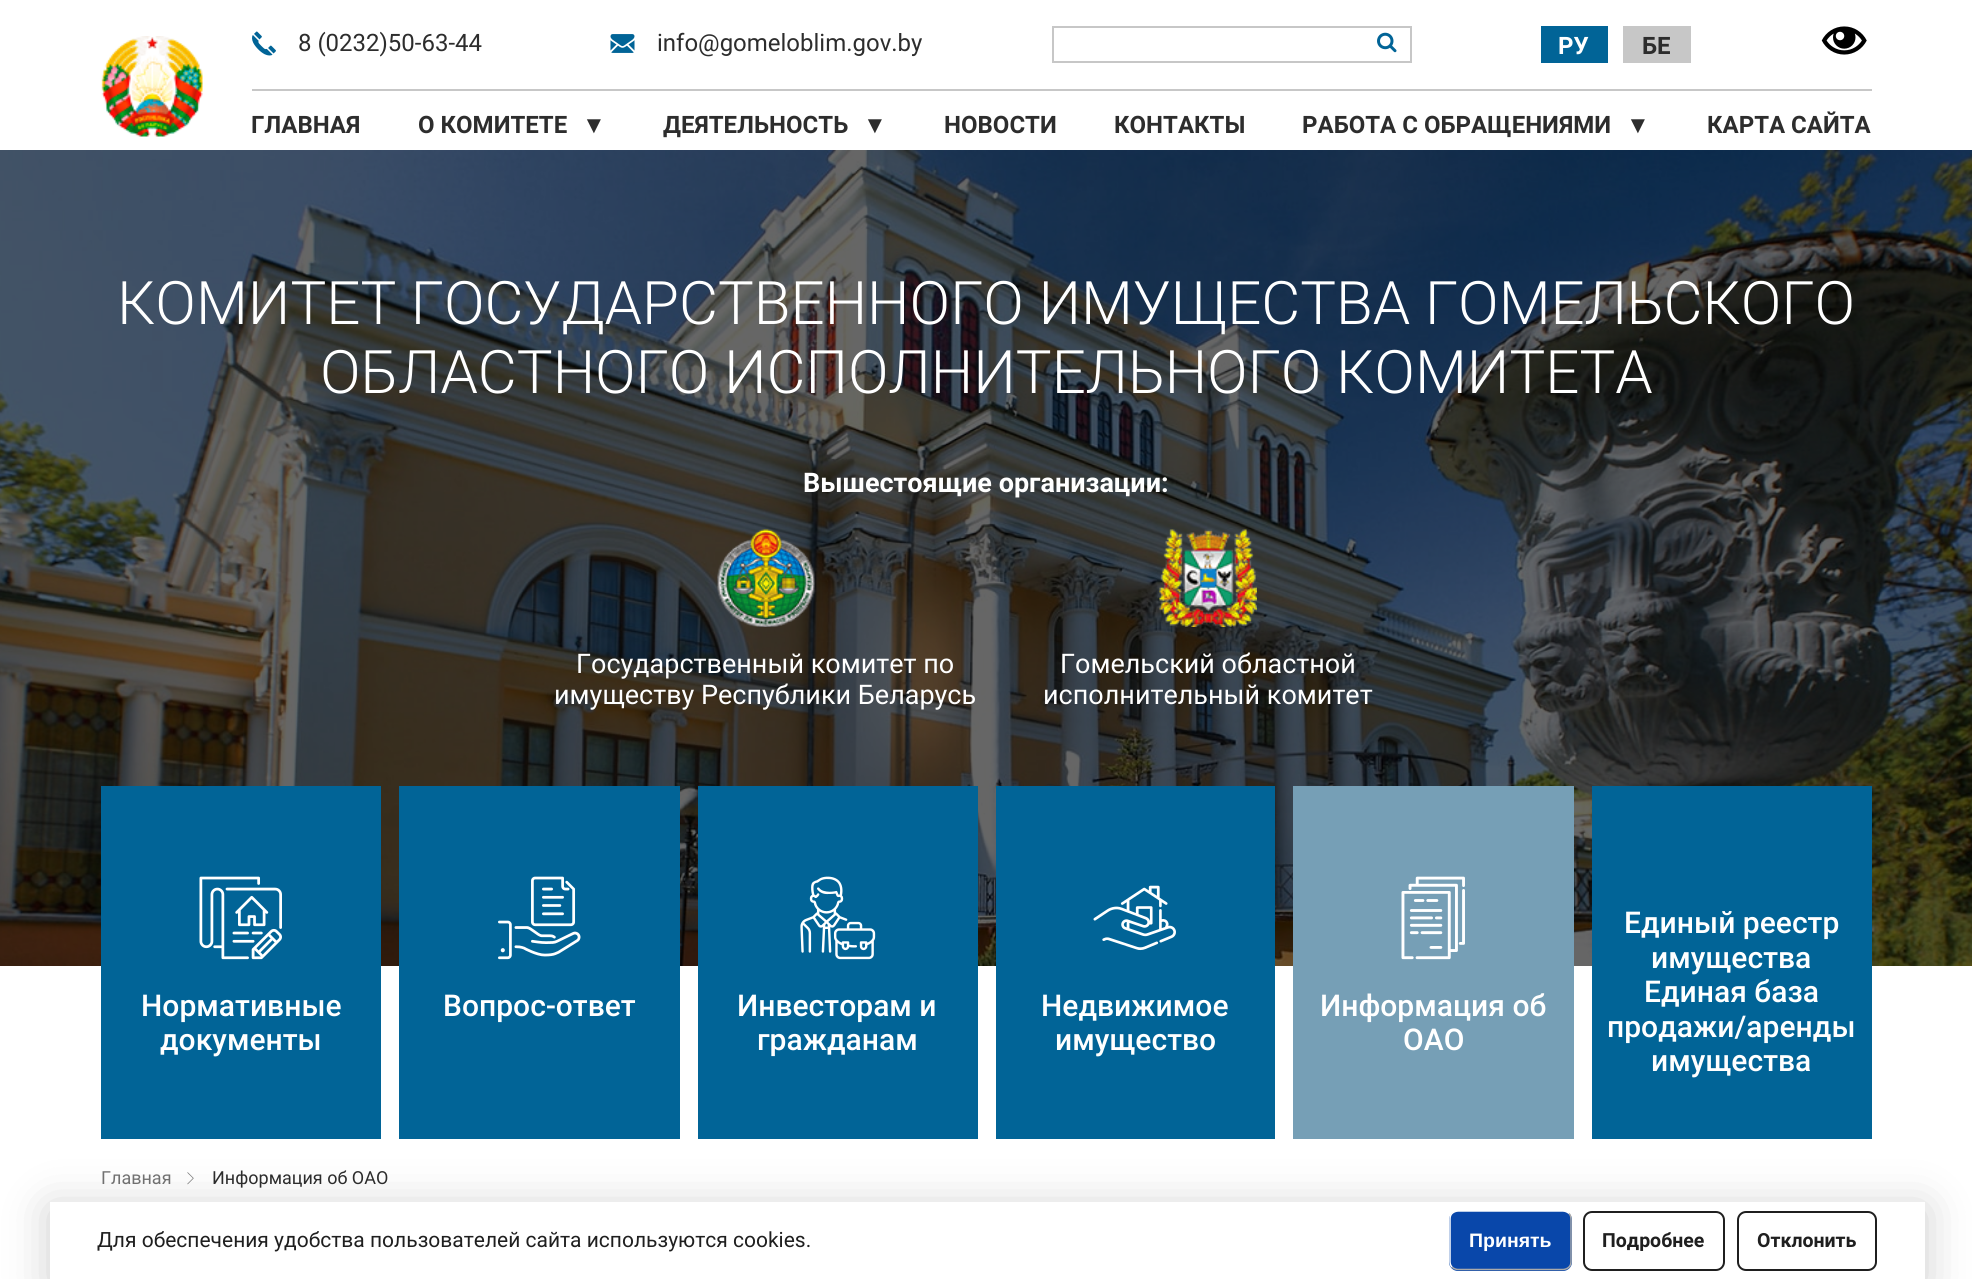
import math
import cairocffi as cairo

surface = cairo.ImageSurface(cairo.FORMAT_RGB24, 1972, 1279)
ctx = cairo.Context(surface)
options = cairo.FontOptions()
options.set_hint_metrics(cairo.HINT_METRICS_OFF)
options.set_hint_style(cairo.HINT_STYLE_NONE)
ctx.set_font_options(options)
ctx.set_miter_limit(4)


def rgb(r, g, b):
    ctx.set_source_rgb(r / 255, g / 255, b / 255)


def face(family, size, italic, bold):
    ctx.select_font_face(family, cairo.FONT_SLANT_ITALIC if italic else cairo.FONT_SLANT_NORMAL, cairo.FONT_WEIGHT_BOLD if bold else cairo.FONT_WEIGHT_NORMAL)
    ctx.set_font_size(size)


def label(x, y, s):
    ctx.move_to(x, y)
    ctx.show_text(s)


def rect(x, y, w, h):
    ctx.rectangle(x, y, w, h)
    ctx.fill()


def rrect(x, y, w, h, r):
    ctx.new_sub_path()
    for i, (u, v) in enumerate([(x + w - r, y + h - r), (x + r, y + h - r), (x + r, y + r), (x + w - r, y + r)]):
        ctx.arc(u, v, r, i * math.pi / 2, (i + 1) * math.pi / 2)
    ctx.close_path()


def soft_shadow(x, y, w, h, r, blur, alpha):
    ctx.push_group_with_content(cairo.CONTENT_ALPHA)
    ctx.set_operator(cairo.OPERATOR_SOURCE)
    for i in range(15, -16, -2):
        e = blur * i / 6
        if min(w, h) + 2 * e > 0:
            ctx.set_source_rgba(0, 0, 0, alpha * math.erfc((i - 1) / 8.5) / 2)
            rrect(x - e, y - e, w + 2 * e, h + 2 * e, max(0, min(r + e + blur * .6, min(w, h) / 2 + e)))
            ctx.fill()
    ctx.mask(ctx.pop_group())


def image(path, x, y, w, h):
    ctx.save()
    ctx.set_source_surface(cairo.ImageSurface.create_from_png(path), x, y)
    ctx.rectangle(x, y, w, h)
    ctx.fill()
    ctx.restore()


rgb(255, 255, 255)
ctx.paint()
image('image0.png', 101, 36, 102, 101)
rgb(199, 199, 199)
rect(252, 89, 1620, 2)
image('image1.png', 252, 31, 24, 25)
face('Roboto', 24, 0, 0)
rgb(45, 45, 45)
label(298, 51, '8 (0232)50-63-44')
image('image2.png', 610, 34, 25, 19)
label(657, 51, 'info@gomeloblim.gov.by')
ctx.rectangle(1053, 27, 358, 35)
rgb(199, 199, 199)
ctx.stroke()
image('image3.png', 1377, 32, 20, 21)
rgb(1, 100, 151)
rect(1541, 26, 67, 37)
face('Roboto', 24, 0, 1)
rgb(255, 255, 255)
label(1558, 54, 'РУ')
rgb(199, 199, 199)
rect(1623, 26, 68, 37)
rgb(45, 45, 45)
label(1642, 54, 'БЕ')
image('image4.png', 1821, 26, 46, 29)
label(251, 133, 'ГЛАВНАЯ')
label(418, 133, 'О КОМИТЕТЕ')
face('Liberation Sans', 24, 0, 1)
label(582, 133, '▼')
face('Roboto', 24, 0, 1)
label(663, 133, 'ДЕЯТЕЛЬНОСТЬ')
face('Liberation Sans', 24, 0, 1)
label(863, 133, '▼')
face('Roboto', 24, 0, 1)
label(944, 133, 'НОВОСТИ')
label(1114, 133, 'КОНТАКТЫ')
label(1302, 133, 'РАБОТА С ОБРАЩЕНИЯМИ')
face('Liberation Sans', 24, 0, 1)
label(1626, 133, '▼')
face('Roboto', 24, 0, 1)
label(1707, 133, 'КАРТА САЙТА')
image('image5.png', 0, 150, 1972, 816)
face('Roboto Light', 60, 0, 0)
rgb(255, 255, 255)
label(117, 324, 'КОМИТЕТ ГОСУДАРСТВЕННОГО ИМУЩЕСТВА ГОМЕЛЬСКОГО')
label(320, 393, 'ОБЛАСТНОГО ИСПОЛНИТЕЛЬНОГО КОМИТЕТА')
face('Roboto', 27, 0, 1)
label(803, 492, 'Вышестоящие организации:')
image('image6.png', 717, 529, 98, 98)
face('Roboto', 27, 0, 0)
label(576, 673, 'Государственный комитет по')
label(554, 704, 'имуществу Республики Беларусь')
image('image7.png', 1159, 529, 98, 98)
label(1060, 673, 'Гомельский областной')
label(1043, 704, 'исполнительный комитет')
rgb(1, 100, 151)
rect(101, 786, 280, 353)
image('image8.png', 199, 876, 83, 84)
face('Roboto Medium', 30, 0, 0)
rgb(255, 255, 255)
label(141, 1016, 'Нормативные')
label(160, 1050, 'документы')
rgb(1, 100, 151)
rect(399, 786, 281, 353)
image('image9.png', 498, 876, 83, 84)
rgb(255, 255, 255)
label(443, 1016, 'Вопрос-ответ')
rgb(1, 100, 151)
rect(698, 786, 280, 353)
image('image10.png', 800, 876, 76, 84)
rgb(255, 255, 255)
label(737, 1016, 'Инвесторам и')
label(757, 1050, 'гражданам')
rgb(1, 100, 151)
rect(996, 786, 279, 353)
image('image11.png', 1093, 885, 83, 66)
rgb(255, 255, 255)
label(1041, 1016, 'Недвижимое')
label(1055, 1050, 'имущество')
rgb(118, 159, 182)
rect(1293, 786, 281, 353)
image('image12.png', 1401, 876, 64, 84)
rgb(255, 255, 255)
label(1320, 1016, 'Информация об')
label(1403, 1050, 'ОАО')
rgb(1, 100, 151)
rect(1592, 786, 280, 353)
rgb(255, 255, 255)
label(1624, 933, 'Единый реестр')
label(1651, 968, 'имущества')
label(1644, 1002, 'Единая база')
label(1607, 1037, 'продажи/аренды')
label(1651, 1071, 'имущества')
face('Roboto', 18, 0, 0)
rgb(115, 115, 115)
label(101, 1184, 'Главная')
image('image13.png', 187, 1172, 7, 13)
rgb(45, 45, 45)
label(212, 1184, 'Информация об ОАО')
rgb(0, 0, 0)
soft_shadow(50, 1208, 1875, 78, 0, 22.5, 0.2)
rgb(255, 255, 255)
rect(50, 1202, 1875, 77)
face('Roboto', 21, 0, 0)
rgb(31, 31, 31)
label(97, 1247, 'Для обеспечения удобства пользователей сайта используются cookies.')
rrect(1584, 1212, 140, 58, 8)
ctx.stroke()
face('Roboto', 19.5, 0, 1)
label(1602, 1247, 'Подробнее')
rrect(1738, 1212, 138, 58, 8)
ctx.stroke()
label(1757, 1247, 'Отклонить')
rgb(9, 71, 170)
rrect(1449, 1211, 123, 60, 9)
ctx.fill()
ctx.new_path()
ctx.move_to(1569, 1213.5)
ctx.curve_to(1570.5, 1215, 1571, 1217, 1571, 1219.5)
ctx.line_to(1571, 1261.5)
ctx.curve_to(1571, 1263.5, 1570.5, 1265.5, 1569, 1267)
ctx.curve_to(1567.5, 1268.5, 1565, 1269.5, 1563, 1269.5)
ctx.line_to(1458, 1269.5)
ctx.curve_to(1456, 1269.5, 1453.5, 1268.5, 1452, 1267)
rgb(170, 170, 170)
ctx.set_line_width(1.5)
ctx.stroke()
ctx.new_path()
ctx.move_to(1452, 1267)
ctx.curve_to(1450.5, 1265.5, 1450, 1263.5, 1450, 1261.5)
ctx.line_to(1450, 1219.5)
ctx.curve_to(1450, 1217, 1450.5, 1215, 1452, 1213.5)
ctx.curve_to(1453.5, 1212, 1456, 1211, 1458, 1211)
ctx.line_to(1563, 1211)
ctx.curve_to(1565, 1211, 1567.5, 1212, 1569, 1213.5)
rgb(255, 255, 255)
ctx.stroke()
face('Liberation Sans', 19.5, 0, 1)
label(1469, 1247, 'Принять')
surface.write_to_png('render.png')
